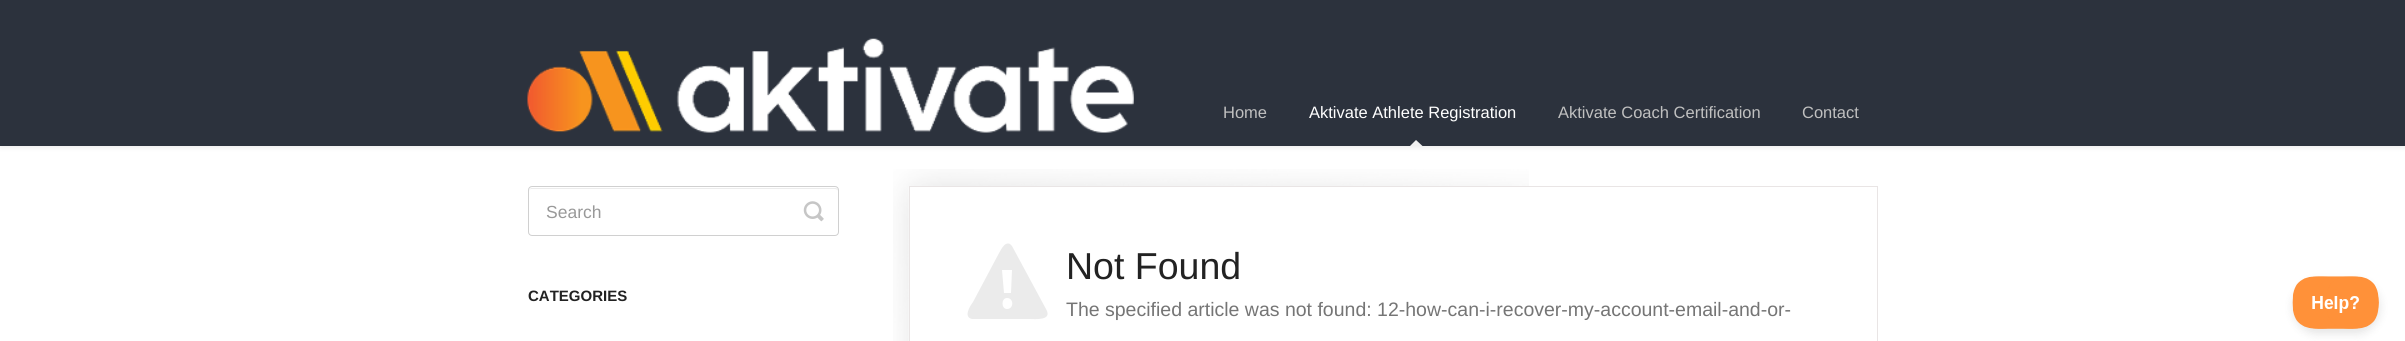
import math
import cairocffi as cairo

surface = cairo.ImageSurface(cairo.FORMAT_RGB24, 2405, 341)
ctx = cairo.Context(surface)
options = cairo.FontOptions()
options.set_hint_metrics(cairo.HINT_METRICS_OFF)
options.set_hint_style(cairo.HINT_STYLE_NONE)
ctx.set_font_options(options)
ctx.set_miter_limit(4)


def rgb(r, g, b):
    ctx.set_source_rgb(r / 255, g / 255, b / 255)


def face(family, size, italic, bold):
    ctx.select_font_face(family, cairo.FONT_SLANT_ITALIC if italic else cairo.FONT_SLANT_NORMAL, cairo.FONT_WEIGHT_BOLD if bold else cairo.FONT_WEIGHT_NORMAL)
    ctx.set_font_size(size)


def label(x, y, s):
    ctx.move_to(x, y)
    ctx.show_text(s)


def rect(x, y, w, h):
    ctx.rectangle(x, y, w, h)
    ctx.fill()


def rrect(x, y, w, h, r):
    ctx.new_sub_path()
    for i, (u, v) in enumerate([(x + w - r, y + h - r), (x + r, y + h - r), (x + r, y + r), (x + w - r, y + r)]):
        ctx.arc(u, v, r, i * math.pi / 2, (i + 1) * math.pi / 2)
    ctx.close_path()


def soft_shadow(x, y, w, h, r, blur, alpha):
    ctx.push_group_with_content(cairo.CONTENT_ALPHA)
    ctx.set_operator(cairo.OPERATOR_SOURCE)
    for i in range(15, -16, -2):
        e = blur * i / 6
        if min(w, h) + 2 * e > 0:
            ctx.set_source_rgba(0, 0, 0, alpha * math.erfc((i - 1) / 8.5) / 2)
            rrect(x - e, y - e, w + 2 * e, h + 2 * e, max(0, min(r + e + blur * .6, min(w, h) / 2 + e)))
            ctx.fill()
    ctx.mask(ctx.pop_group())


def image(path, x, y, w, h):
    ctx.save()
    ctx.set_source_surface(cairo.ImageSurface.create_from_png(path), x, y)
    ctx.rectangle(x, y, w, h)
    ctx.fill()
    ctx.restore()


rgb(255, 255, 255)
ctx.paint()
rgb(0, 0, 0)
soft_shadow(0, 1, 2405, 147, 0, 2.5, 0.07)
rgb(44, 50, 61)
rect(0, 0, 2405, 146)
image('image0.png', 527, 38, 607, 95)
face('Liberation Sans', 16.5, 0, 0)
rgb(192, 192, 192)
label(1223, 118, 'Home')
rgb(255, 255, 255)
label(1309, 118, 'Aktivate Athlete Registration')
rgb(240, 240, 240)
ctx.new_path()
ctx.move_to(1422.5, 146)
ctx.line_to(1410, 146)
ctx.line_to(1416, 140)
ctx.close_path()
ctx.fill()
rgb(192, 192, 192)
label(1558, 118, 'Aktivate Coach Certification')
label(1802, 118, 'Contact')
rgb(236, 236, 236)
ctx.new_path()
ctx.move_to(531, 189)
ctx.line_to(835, 189)
ctx.curve_to(836, 189, 838, 190, 838, 191)
ctx.curve_to(838, 190, 838, 189, 836, 188)
ctx.line_to(531, 188)
ctx.line_to(529, 190)
ctx.line_to(529, 191)
ctx.curve_to(529, 190, 530, 189, 531, 189)
ctx.close_path()
ctx.fill()
rrect(528.5, 186.5, 310, 49, 3.5)
rgb(208, 208, 208)
ctx.set_line_width(1)
ctx.stroke()
face('Liberation Sans', 17.5, 0, 0)
rgb(153, 153, 153)
label(546, 218, 'Search')
image('image1.png', 803, 201, 21, 21)
face('Liberation Sans', 15, 0, 1)
rgb(34, 34, 34)
label(528, 301, 'CATEGORIES')
image('image2.png', 893, 169, 636, 172)
ctx.rectangle(909.5, 186.5, 968, 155)
rgb(233, 229, 229)
ctx.stroke()
rgb(235, 235, 235)
ctx.new_path()
ctx.move_to(1046, 309)
ctx.line_to(1012, 246)
ctx.line_to(1010, 244)
ctx.curve_to(1004, 241, 1000, 252, 998, 255)
ctx.line_to(973, 302)
ctx.curve_to(970, 306, 963, 317, 972, 319)
ctx.line_to(1029, 319)
ctx.curve_to(1035, 319, 1053, 321, 1046, 309)
ctx.close_path()
ctx.move_to(1012, 270)
ctx.line_to(1011, 293)
ctx.line_to(1004, 293)
ctx.line_to(1002, 270)
ctx.close_path()
ctx.move_to(1007, 309)
ctx.curve_to(1001, 309, 1001, 298, 1007, 298)
ctx.curve_to(1014, 298, 1014, 309, 1007, 309)
ctx.close_path()
ctx.fill()
face('Liberation Sans', 37.5, 0, 0)
rgb(34, 34, 34)
label(1066, 279, 'Not Found')
face('Liberation Sans', 19.5, 0, 0)
rgb(117, 117, 117)
label(1066, 316, 'The specified article was not found: 12-how-can-i-recover-my-account-email-and-or-')
rgb(0, 0, 0)
soft_shadow(2293, 281, 87, 53, 26.5, 4.5, 0.1)
image('image3.png', 2292, 276, 87, 53)
surface.write_to_png('render.png')
